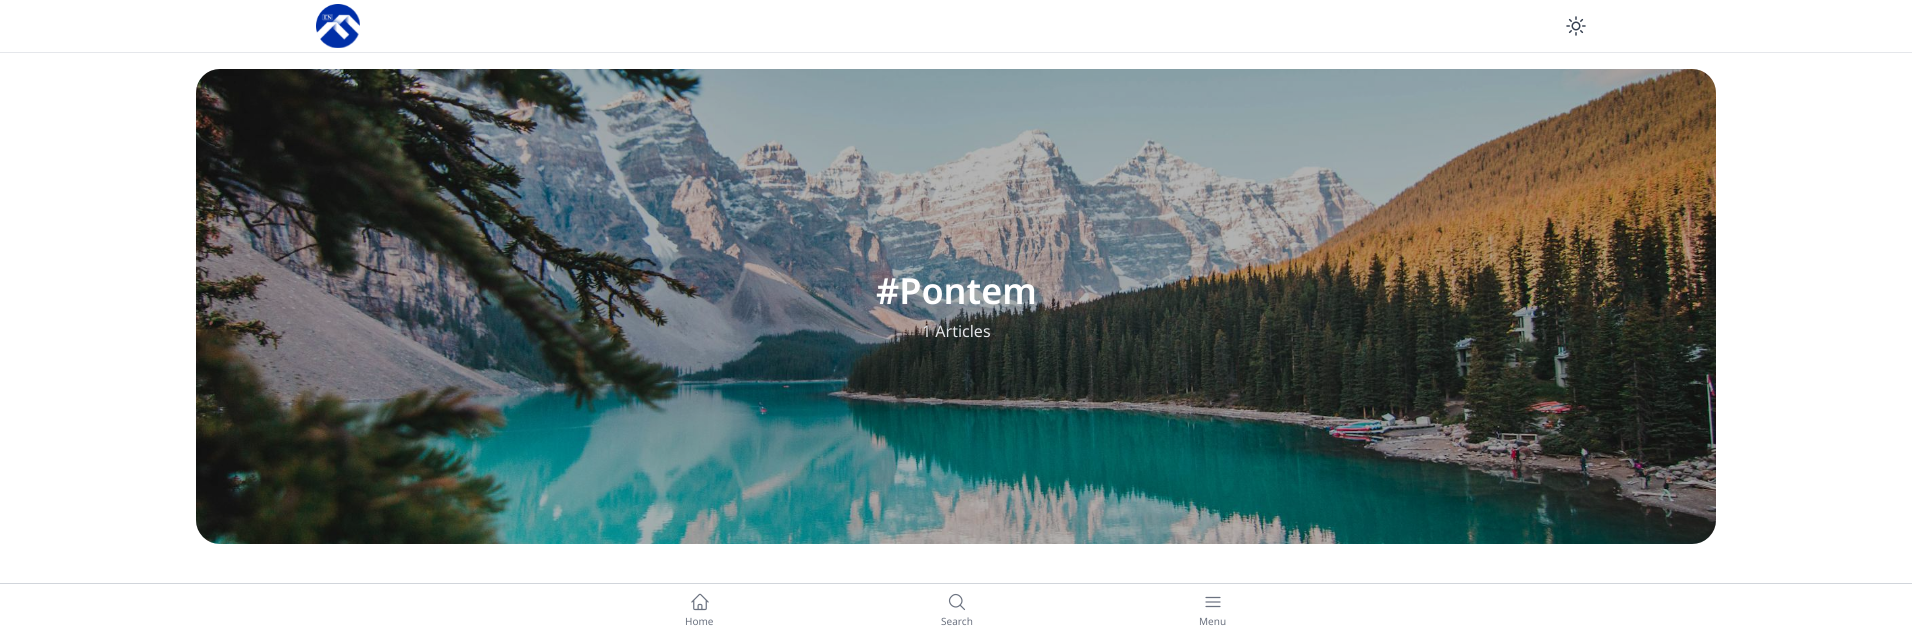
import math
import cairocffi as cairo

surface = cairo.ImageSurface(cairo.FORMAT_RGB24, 1912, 634)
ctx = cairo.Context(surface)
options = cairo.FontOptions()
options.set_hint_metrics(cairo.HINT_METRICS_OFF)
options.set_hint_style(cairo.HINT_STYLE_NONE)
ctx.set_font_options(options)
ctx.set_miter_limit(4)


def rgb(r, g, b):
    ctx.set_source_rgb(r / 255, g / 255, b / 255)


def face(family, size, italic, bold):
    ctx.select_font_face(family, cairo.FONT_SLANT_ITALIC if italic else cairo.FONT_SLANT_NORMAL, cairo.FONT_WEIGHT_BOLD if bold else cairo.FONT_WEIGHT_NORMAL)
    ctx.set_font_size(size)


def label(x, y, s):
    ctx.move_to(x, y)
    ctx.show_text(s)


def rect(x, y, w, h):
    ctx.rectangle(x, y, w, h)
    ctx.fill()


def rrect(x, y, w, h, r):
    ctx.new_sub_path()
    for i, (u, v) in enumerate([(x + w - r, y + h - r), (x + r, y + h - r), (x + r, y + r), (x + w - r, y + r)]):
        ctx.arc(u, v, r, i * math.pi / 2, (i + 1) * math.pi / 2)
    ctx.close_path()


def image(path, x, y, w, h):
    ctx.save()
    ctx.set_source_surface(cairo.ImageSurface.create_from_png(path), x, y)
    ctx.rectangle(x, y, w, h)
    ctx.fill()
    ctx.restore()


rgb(255, 255, 255)
ctx.paint()
rgb(229, 231, 235)
rect(0, 52, 1912, 1)
image('image0.png', 316, 4, 44, 44)
image('image1.png', 1566, 16, 20, 20)
image('image2.png', 196, 69, 1520, 475)
ctx.set_source_rgba(0, 0, 0, 0.3)
rrect(196, 69, 1520, 475, 24)
ctx.fill()
face('Noto Sans SemiBold', 36, 0, 0)
rgb(255, 255, 255)
label(876, 304, '#Pontem')
face('Noto Sans', 16, 0, 0)
rgb(229, 231, 235)
label(922, 337, '1 Articles')
rgb(209, 213, 219)
rect(0, 583, 1912, 1)
image('image3.png', 691, 593, 18, 18)
face('Noto Sans', 10, 0, 0)
rgb(107, 114, 128)
label(685, 625, 'Home')
ctx.new_path()
ctx.move_to(964.5, 609.5)
ctx.line_to(960, 605)
ctx.move_to(960, 605)
ctx.curve_to(966, 599.5, 957, 590.5, 951.5, 596.5)
ctx.curve_to(945.5, 602, 954.5, 611, 960, 605)
ctx.close_path()
ctx.set_line_width(1.2)
ctx.set_line_cap(cairo.LINE_CAP_ROUND)
ctx.set_line_join(cairo.LINE_JOIN_ROUND)
ctx.stroke()
label(941, 625, 'Search')
ctx.new_path()
ctx.move_to(1206, 597.5)
ctx.line_to(1220, 597.5)
ctx.move_to(1206, 602)
ctx.line_to(1220, 602)
ctx.move_to(1206, 606.5)
ctx.line_to(1220, 606.5)
ctx.stroke()
label(1199, 625, 'Menu')
surface.write_to_png('render.png')
